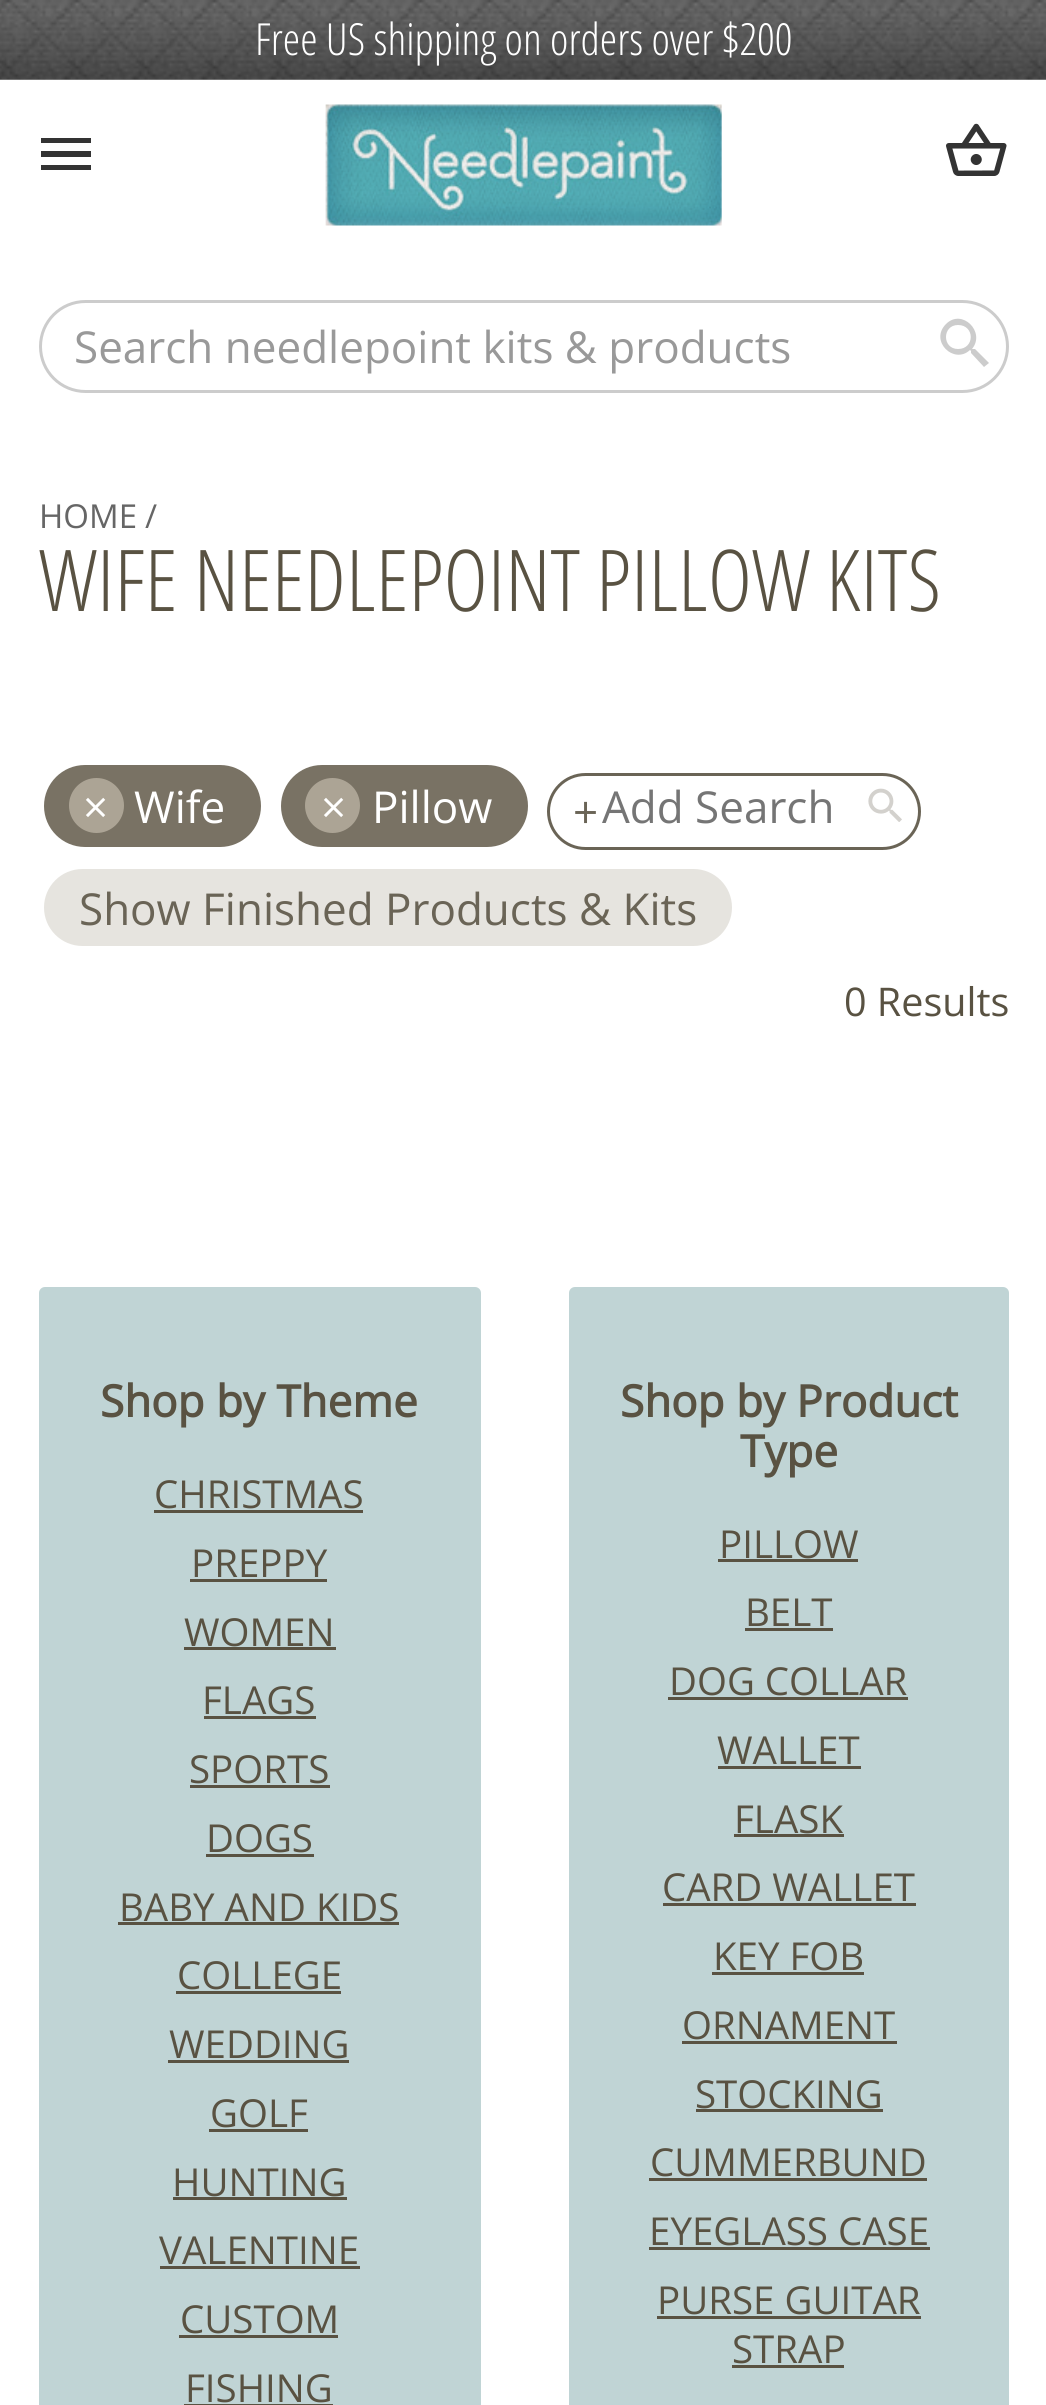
import math
import cairocffi as cairo

surface = cairo.ImageSurface(cairo.FORMAT_RGB24, 1046, 2405)
ctx = cairo.Context(surface)
options = cairo.FontOptions()
options.set_hint_metrics(cairo.HINT_METRICS_OFF)
options.set_hint_style(cairo.HINT_STYLE_NONE)
ctx.set_font_options(options)
ctx.set_miter_limit(4)


def rgb(r, g, b):
    ctx.set_source_rgb(r / 255, g / 255, b / 255)


def face(family, size, italic, bold):
    ctx.select_font_face(family, cairo.FONT_SLANT_ITALIC if italic else cairo.FONT_SLANT_NORMAL, cairo.FONT_WEIGHT_BOLD if bold else cairo.FONT_WEIGHT_NORMAL)
    ctx.set_font_size(size)


def label(x, y, s):
    ctx.move_to(x, y)
    ctx.show_text(s)


def rect(x, y, w, h):
    ctx.rectangle(x, y, w, h)
    ctx.fill()


def rrect(x, y, w, h, r):
    ctx.new_sub_path()
    for i, (u, v) in enumerate([(x + w - r, y + h - r), (x + r, y + h - r), (x + r, y + r), (x + w - r, y + r)]):
        ctx.arc(u, v, r, i * math.pi / 2, (i + 1) * math.pi / 2)
    ctx.close_path()


def image(path, x, y, w, h):
    ctx.save()
    ctx.set_source_surface(cairo.ImageSurface.create_from_png(path), x, y)
    ctx.rectangle(x, y, w, h)
    ctx.fill()
    ctx.restore()


rgb(255, 255, 255)
ctx.paint()
image('image0.png', 0, 0, 1046, 80)
face('Open Sans Condensed Light', 44.25, 0, 0)
rgb(255, 255, 255)
label(255, 55, 'Free US shipping on orders over $200')
rgb(51, 51, 51)
ctx.new_path()
ctx.move_to(41, 170)
ctx.line_to(91, 170)
ctx.line_to(91, 165)
ctx.line_to(41, 165)
ctx.close_path()
ctx.move_to(41, 157)
ctx.line_to(91, 157)
ctx.line_to(91, 151)
ctx.line_to(41, 151)
ctx.close_path()
ctx.move_to(41, 138)
ctx.line_to(41, 143)
ctx.line_to(91, 143)
ctx.line_to(91, 138)
ctx.close_path()
ctx.fill()
image('image1.png', 325, 104, 397, 122)
image('image2.png', 946, 123, 61, 53)
rrect(40.5, 301.5, 967, 90, 45)
rgb(204, 204, 204)
ctx.set_line_width(3)
ctx.stroke()
face('Open Sans', 44, 0, 0)
rgb(153, 153, 153)
label(74, 363, 'Search needlepoint kits & products')
rgb(204, 204, 204)
ctx.new_path()
ctx.move_to(975, 349)
ctx.line_to(973, 349)
ctx.line_to(972, 349)
ctx.curve_to(986, 332, 962, 308, 946, 324)
ctx.curve_to(929, 341, 954, 365, 970, 350)
ctx.line_to(971, 351)
ctx.line_to(971, 353)
ctx.line_to(984, 367)
ctx.line_to(989, 363)
ctx.close_path()
ctx.move_to(958, 349)
ctx.curve_to(942, 349, 942, 325, 958, 325)
ctx.curve_to(975, 325, 975, 349, 958, 349)
ctx.close_path()
ctx.fill()
face('Open Sans', 33, 0, 0)
rgb(102, 102, 102)
label(39, 528, 'HOME')
label(145, 528, '/')
face('Open Sans Condensed Light', 85.25, 0, 0)
rgb(89, 82, 66)
label(39, 611, 'WIFE NEEDLEPOINT PILLOW KITS')
rrect(548.5, 774.5, 371, 74, 37)
rgb(106, 100, 86)
ctx.stroke()
face('Open Sans', 44, 0, 0)
label(573, 828, '+')
image('image3.png', 868, 788, 34, 34)
rgb(117, 117, 117)
label(602, 823, 'Add Search')
rgb(230, 228, 223)
rrect(45.5, 870.5, 685, 74, 37)
ctx.fill_preserve()
ctx.stroke()
rgb(106, 100, 86)
label(79, 925, 'Show Finished Products & Kits')
rgb(121, 114, 100)
rrect(45.5, 766.5, 214, 79, 39.5)
ctx.fill_preserve()
ctx.stroke()
rgb(172, 164, 149)
ctx.arc(96.5, 805.5, 27.5, 0, 2 * math.pi)
ctx.fill()
rgb(255, 255, 255)
label(83, 823, '×')
label(134, 823, 'Wife')
rgb(121, 114, 100)
rrect(282.5, 766.5, 244, 79, 39.5)
ctx.fill_preserve()
ctx.stroke()
rgb(172, 164, 149)
ctx.arc(332.5, 805.5, 27.5, 0, 2 * math.pi)
ctx.fill()
rgb(255, 255, 255)
label(321, 823, '×')
label(372, 823, 'Pillow')
face('Open Sans', 39.5, 0, 0)
rgb(89, 82, 66)
label(844, 1016, '0 Results')
rgb(192, 212, 213)
rrect(39, 1287, 442, 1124, 6)
ctx.fill()
face('Open Sans', 44, 0, 1)
rgb(89, 82, 66)
label(100, 1417, 'Shop by Theme')
face('Open Sans', 38.5, 0, 0)
label(154, 1508, 'CHRISTMAS')
rect(154, 1510, 209, 3)
label(191, 1577, 'PREPPY')
rect(190, 1579, 137, 3)
label(184, 1646, 'WOMEN')
rect(184, 1647, 152, 3)
label(202, 1714, 'FLAGS')
rect(204, 1716, 112, 3)
label(189, 1783, 'SPORTS')
rect(190, 1785, 140, 3)
label(206, 1852, 'DOGS')
rect(206, 1854, 108, 3)
label(119, 1921, 'BABY AND KIDS')
rect(118, 1922, 281, 3)
label(177, 1989, 'COLLEGE')
rect(176, 1991, 165, 3)
label(169, 2058, 'WEDDING')
rect(168, 2060, 181, 3)
label(210, 2127, 'GOLF')
rect(209, 2129, 99, 3)
label(172, 2196, 'HUNTING')
rect(173, 2197, 174, 3)
label(159, 2264, 'VALENTINE')
rect(160, 2266, 200, 3)
label(180, 2333, 'CUSTOM')
rect(179, 2335, 159, 3)
label(185, 2402, 'FISHING')
rect(184, 2404, 149, 1)
rgb(192, 212, 213)
rrect(569, 1287, 440, 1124, 6)
ctx.fill()
face('Open Sans', 44, 0, 1)
rgb(89, 82, 66)
label(620, 1417, 'Shop by Product')
label(740, 1467, 'Type')
face('Open Sans', 38.5, 0, 0)
label(719, 1558, 'PILLOW')
rect(718, 1559, 140, 3)
label(745, 1626, 'BELT')
rect(745, 1628, 88, 3)
label(669, 1695, 'DOG COLLAR')
rect(668, 1697, 240, 3)
label(717, 1764, 'WALLET')
rect(718, 1766, 143, 3)
label(734, 1833, 'FLASK')
rect(734, 1834, 110, 3)
label(662, 1901, 'CARD WALLET')
rect(663, 1903, 253, 3)
label(713, 1970, 'KEY FOB')
rect(712, 1972, 152, 3)
label(682, 2039, 'ORNAMENT')
rect(682, 2041, 215, 3)
label(695, 2108, 'STOCKING')
rect(696, 2109, 187, 3)
label(650, 2176, 'CUMMERBUND')
rect(649, 2178, 278, 3)
label(649, 2245, 'EYEGLASS CASE')
rect(649, 2247, 281, 3)
label(657, 2314, 'PURSE GUITAR')
rect(657, 2316, 264, 3)
label(732, 2363, 'STRAP')
rect(732, 2365, 112, 3)
surface.write_to_png('render.png')
